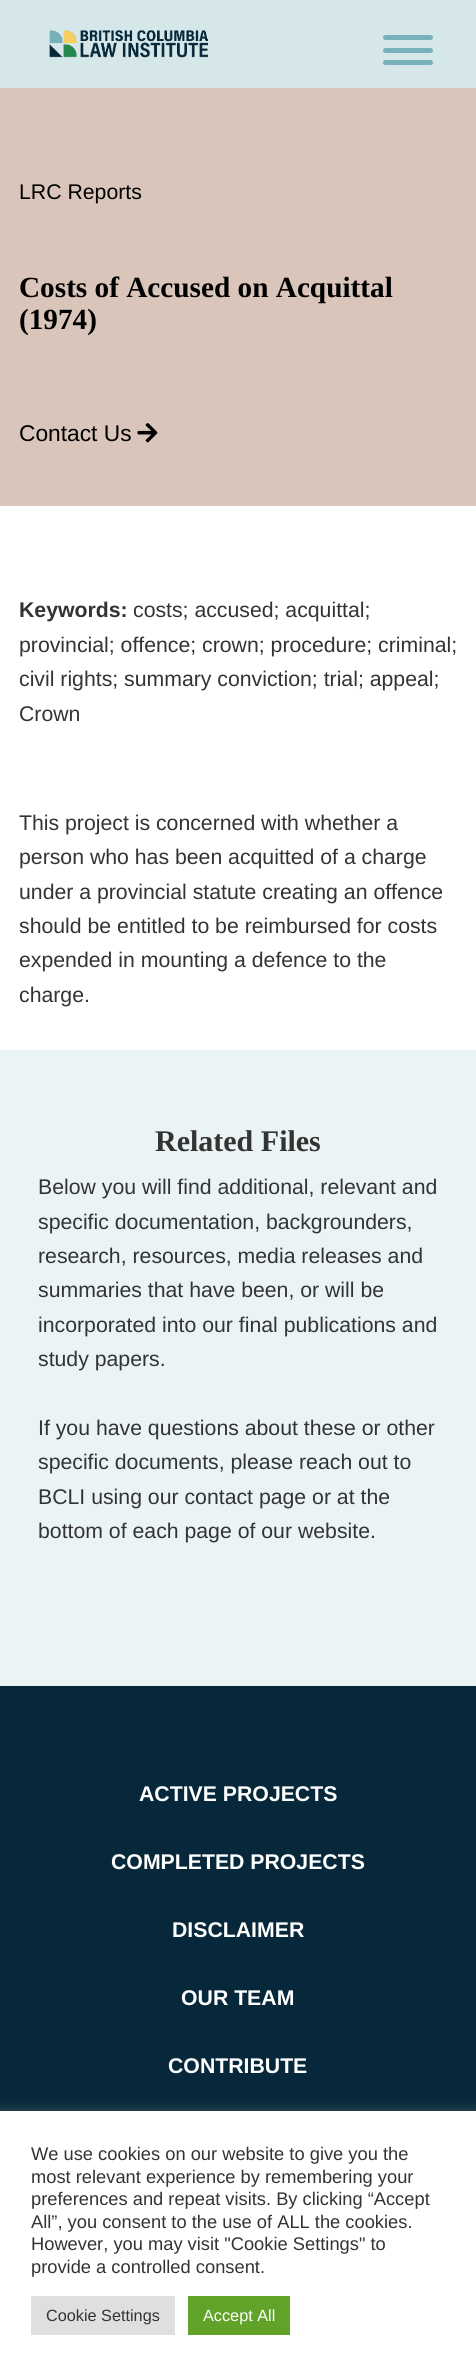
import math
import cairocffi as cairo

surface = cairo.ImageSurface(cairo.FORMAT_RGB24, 476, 2372)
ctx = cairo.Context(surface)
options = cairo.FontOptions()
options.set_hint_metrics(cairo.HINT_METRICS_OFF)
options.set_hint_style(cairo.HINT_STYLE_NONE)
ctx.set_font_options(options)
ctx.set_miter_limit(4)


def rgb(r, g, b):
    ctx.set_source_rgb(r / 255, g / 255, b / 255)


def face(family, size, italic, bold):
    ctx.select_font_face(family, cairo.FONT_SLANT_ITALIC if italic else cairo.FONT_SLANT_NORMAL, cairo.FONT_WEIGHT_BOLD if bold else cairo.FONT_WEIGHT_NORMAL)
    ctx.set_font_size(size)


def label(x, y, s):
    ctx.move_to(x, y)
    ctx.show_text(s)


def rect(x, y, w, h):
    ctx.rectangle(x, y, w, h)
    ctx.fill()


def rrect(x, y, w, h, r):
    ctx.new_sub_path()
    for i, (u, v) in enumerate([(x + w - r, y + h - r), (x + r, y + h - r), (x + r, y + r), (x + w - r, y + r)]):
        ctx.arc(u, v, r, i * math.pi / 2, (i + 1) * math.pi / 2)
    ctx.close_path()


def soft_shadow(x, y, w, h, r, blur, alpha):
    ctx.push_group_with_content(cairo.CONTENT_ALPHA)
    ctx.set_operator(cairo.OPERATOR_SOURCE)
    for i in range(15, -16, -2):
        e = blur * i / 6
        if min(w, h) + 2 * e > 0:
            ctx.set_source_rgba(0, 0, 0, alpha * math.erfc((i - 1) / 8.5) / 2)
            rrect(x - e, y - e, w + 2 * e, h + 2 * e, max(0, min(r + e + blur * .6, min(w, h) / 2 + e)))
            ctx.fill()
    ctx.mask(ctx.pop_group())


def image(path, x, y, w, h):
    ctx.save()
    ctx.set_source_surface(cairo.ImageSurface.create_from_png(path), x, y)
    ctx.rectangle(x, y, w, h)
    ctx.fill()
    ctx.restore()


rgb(255, 255, 255)
ctx.paint()
rgb(214, 231, 234)
rect(0, 0, 476, 88)
image('image0.png', 49, 30, 160, 28)
rgb(120, 177, 187)
rrect(383, 35, 50, 5, 2.5)
ctx.fill()
rrect(383, 48, 50, 5, 2.5)
ctx.fill()
rrect(383, 60, 50, 5, 2.5)
ctx.fill()
rgb(217, 197, 186)
rect(0, 88, 476, 418)
face('Liberation Sans', 21.25, 0, 0)
rgb(0, 0, 0)
label(19, 199, 'LRC Reports')
face('Liberation Serif', 29.25, 0, 1)
label(19, 297, 'Costs of Accused on Acquittal')
label(19, 329, '(1974)')
face('Liberation Sans', 22.75, 0, 0)
label(19, 441, 'Contact Us')
image('image1.png', 137, 423, 21, 20)
face('Liberation Sans', 21.25, 0, 1)
rgb(51, 51, 51)
label(19, 617, 'Keywords:')
face('Liberation Sans', 21.25, 0, 0)
label(133, 617, 'costs; accused; acquittal;')
label(19, 652, 'provincial; offence; crown; procedure; criminal;')
label(19, 686, 'civil rights; summary conviction; trial; appeal;')
label(19, 721, 'Crown')
label(19, 830, 'This project is concerned with whether a')
label(19, 864, 'person who has been acquitted of a charge')
label(19, 899, 'under a provincial statute creating an offence')
label(19, 933, 'should be entitled to be reimbursed for costs')
label(19, 967, 'expended in mounting a defence to the')
label(19, 1002, 'charge.')
rgb(235, 244, 245)
rect(0, 1050, 476, 636)
face('Liberation Serif', 30, 0, 1)
rgb(51, 51, 51)
label(155, 1151, 'Related Files')
face('Liberation Sans', 21.25, 0, 0)
label(38, 1194, 'Below you will find additional, relevant and')
label(38, 1229, 'specific documentation, backgrounders,')
label(38, 1263, 'research, resources, media releases and')
label(38, 1297, 'summaries that have been, or will be')
label(38, 1332, 'incorporated into our final publications and')
label(38, 1366, 'study papers.')
label(38, 1435, 'If you have questions about these or other')
label(38, 1469, 'specific documents, please reach out to')
label(38, 1504, 'BCLI using our contact page or at the')
label(38, 1538, 'bottom of each page of our website.')
rgb(7, 40, 58)
rect(0, 1686, 476, 425)
face('Liberation Sans', 21.25, 0, 1)
rgb(255, 255, 255)
label(139, 1801, 'ACTIVE PROJECTS')
label(111, 1869, 'COMPLETED PROJECTS')
label(172, 1937, 'DISCLAIMER')
label(181, 2005, 'OUR TEAM')
label(168, 2073, 'CONTRIBUTE')
rgb(172, 171, 171)
soft_shadow(0, 2110, 476, 261, 0, 6, 0.3)
rgb(255, 255, 255)
rect(0, 2111, 476, 261)
face('Liberation Sans', 18.3, 0, 0)
rgb(51, 51, 51)
label(31, 2160, 'We use cookies on our website to give you the')
label(31, 2183, 'most relevant experience by remembering your')
label(31, 2205, 'preferences and repeat visits. By clicking “Accept')
label(31, 2228, 'All”, you consent to the use of ALL the cookies.')
label(31, 2250, 'However, you may visit "Cookie Settings" to')
label(31, 2273, 'provide a controlled consent.')
rgb(222, 223, 224)
rect(31, 2296, 144, 39)
face('Liberation Sans', 16.25, 0, 0)
rgb(51, 51, 51)
label(46, 2321, 'Cookie Settings')
rgb(97, 162, 41)
rect(188, 2296, 102, 39)
rgb(255, 255, 255)
label(203, 2321, 'Accept All')
surface.write_to_png('render.png')
